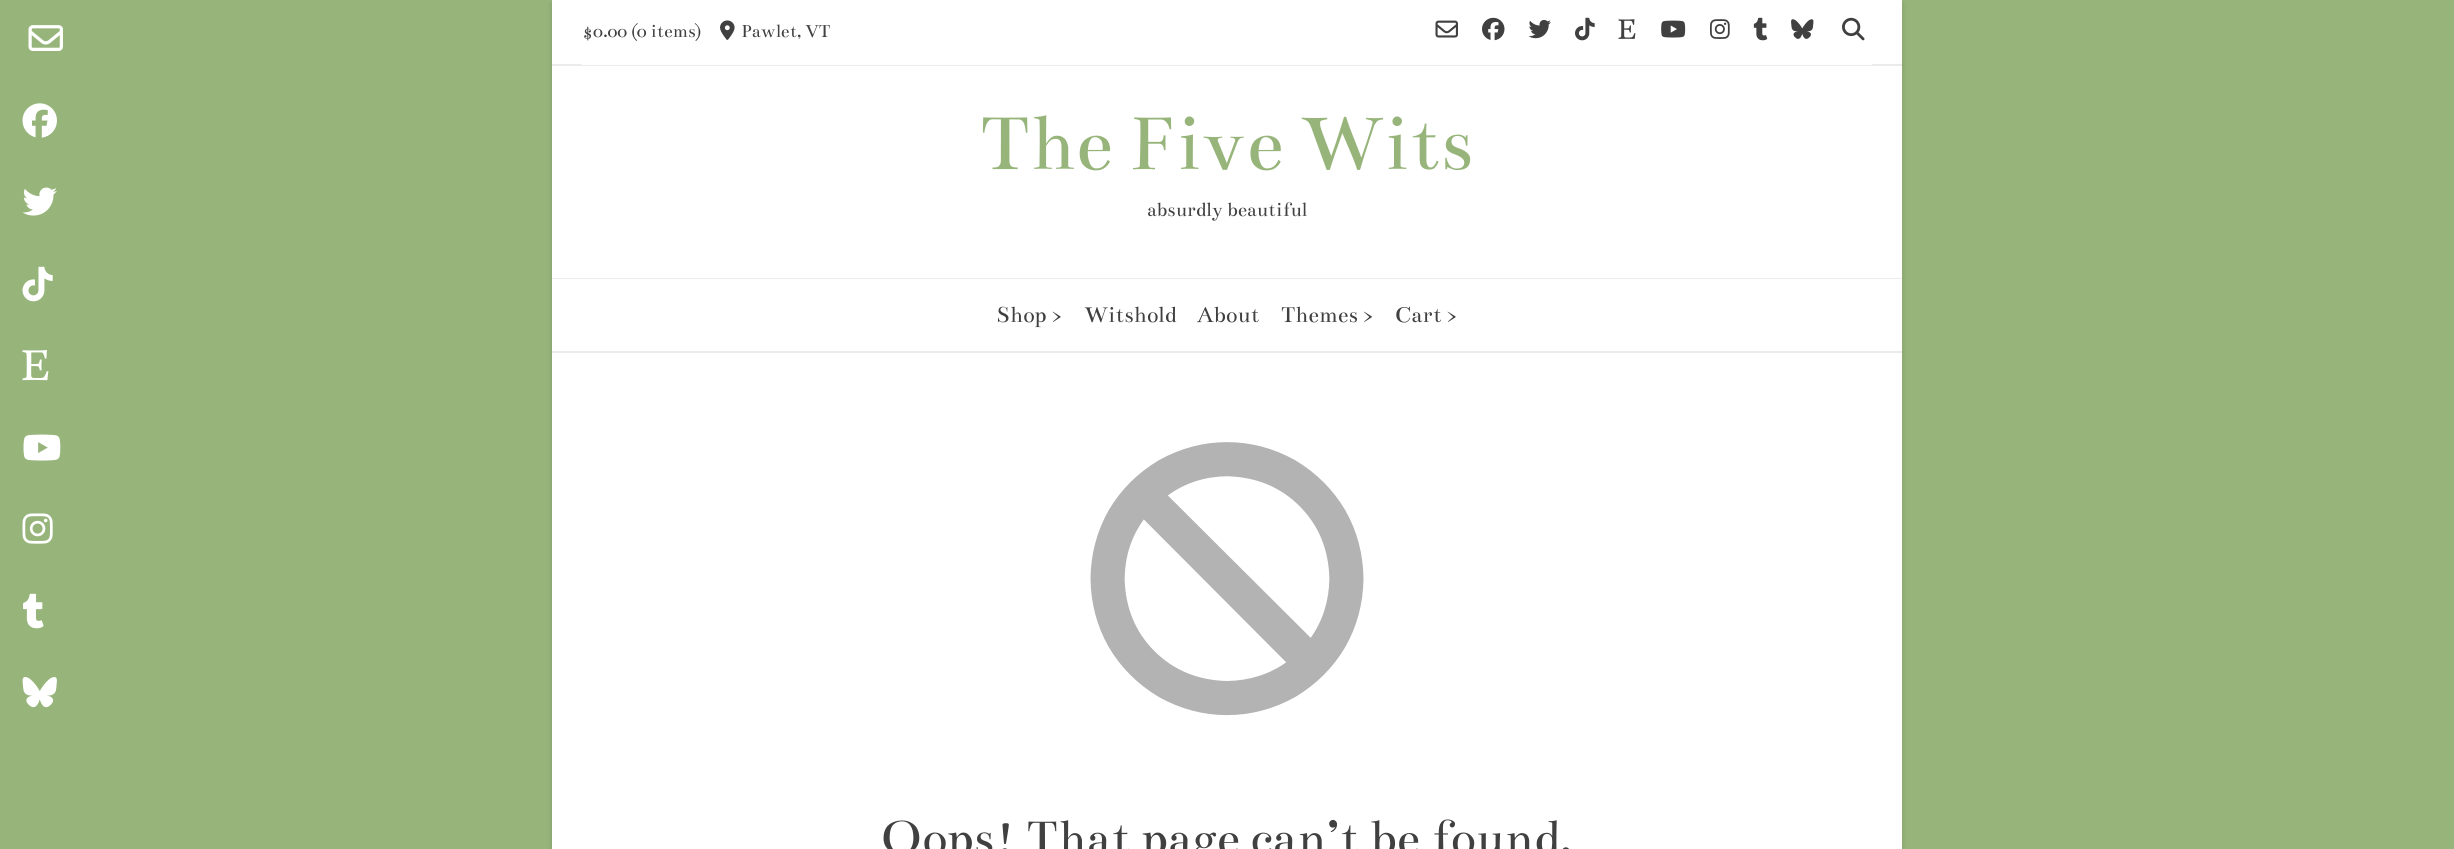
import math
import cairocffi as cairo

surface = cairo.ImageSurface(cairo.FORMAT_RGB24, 2454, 849)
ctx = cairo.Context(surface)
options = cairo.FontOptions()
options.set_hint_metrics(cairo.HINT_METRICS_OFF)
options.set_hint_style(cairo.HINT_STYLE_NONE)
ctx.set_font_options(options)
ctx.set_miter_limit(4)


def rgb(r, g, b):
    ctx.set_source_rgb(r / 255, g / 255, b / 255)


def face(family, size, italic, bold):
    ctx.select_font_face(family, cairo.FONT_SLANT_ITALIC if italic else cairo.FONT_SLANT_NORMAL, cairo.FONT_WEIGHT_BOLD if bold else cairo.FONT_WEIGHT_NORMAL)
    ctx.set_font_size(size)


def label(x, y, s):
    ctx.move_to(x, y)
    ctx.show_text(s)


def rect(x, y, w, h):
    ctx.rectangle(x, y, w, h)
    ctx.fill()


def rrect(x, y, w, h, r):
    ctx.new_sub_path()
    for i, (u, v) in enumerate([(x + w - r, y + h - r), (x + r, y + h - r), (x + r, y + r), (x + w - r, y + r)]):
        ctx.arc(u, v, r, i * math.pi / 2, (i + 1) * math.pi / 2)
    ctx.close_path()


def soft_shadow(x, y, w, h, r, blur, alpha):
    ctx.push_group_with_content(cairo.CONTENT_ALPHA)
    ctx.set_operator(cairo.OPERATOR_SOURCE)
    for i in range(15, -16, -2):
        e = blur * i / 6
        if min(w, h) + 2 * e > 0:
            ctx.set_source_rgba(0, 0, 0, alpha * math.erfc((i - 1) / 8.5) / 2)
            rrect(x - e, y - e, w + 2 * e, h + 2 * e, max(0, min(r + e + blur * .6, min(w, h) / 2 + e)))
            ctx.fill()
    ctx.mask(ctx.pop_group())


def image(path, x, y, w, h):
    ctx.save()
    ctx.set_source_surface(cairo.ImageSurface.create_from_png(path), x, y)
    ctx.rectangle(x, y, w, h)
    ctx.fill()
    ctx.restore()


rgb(151, 181, 123)
ctx.paint()
image('image0.png', 28, 25, 35, 26)
image('image1.png', 22, 103, 35, 35)
image('image2.png', 22, 187, 35, 29)
image('image3.png', 22, 266, 31, 36)
image('image4.png', 22, 350, 27, 31)
image('image5.png', 23, 434, 38, 27)
image('image6.png', 22, 513, 31, 31)
image('image7.png', 23, 593, 21, 36)
image('image8.png', 22, 677, 35, 31)
rgb(0, 0, 0)
soft_shadow(552, 3, 1350, 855, 0, 3, 0.15)
rgb(255, 255, 255)
rect(552, 0, 1350, 849)
rgb(235, 235, 235)
rect(552, 351, 1350, 2)
rect(552, 64, 1350, 2)
rgb(255, 255, 255)
rect(582, 64, 1290, 1)
face('Bentham', 19.5, 0, 0)
rgb(64, 64, 64)
label(582, 37, '$0.00 (0 items)')
image('image9.png', 720, 20, 15, 20)
label(741, 37, 'Pawlet, VT')
image('image10.png', 1435, 20, 23, 18)
image('image11.png', 1482, 17, 23, 24)
image('image12.png', 1528, 19, 23, 20)
image('image13.png', 1575, 17, 20, 24)
image('image14.png', 1618, 19, 18, 20)
image('image15.png', 1661, 20, 25, 18)
image('image16.png', 1710, 19, 20, 20)
image('image17.png', 1753, 17, 15, 24)
image('image18.png', 1791, 19, 23, 20)
image('image19.png', 1842, 17, 23, 24)
face('Bentham', 84, 0, 0)
rgb(151, 181, 123)
label(980, 169, 'The Five Wits')
face('Bentham', 21, 0, 0)
rgb(64, 64, 64)
label(1147, 216, 'absurdly beautiful')
rgb(235, 235, 235)
rect(552, 278, 1350, 1)
face('Bentham', 24, 0, 0)
rgb(64, 64, 64)
label(996, 322, 'Shop >')
label(1084, 322, 'Witshold')
label(1197, 322, 'About')
label(1281, 322, 'Themes >')
label(1395, 322, 'Cart >')
image('image20.png', 1090, 442, 274, 274)
face('Bentham', 52.75, 0, 0)
label(881, 854, 'Oops! That page can’t be found.')
surface.write_to_png('render.png')
